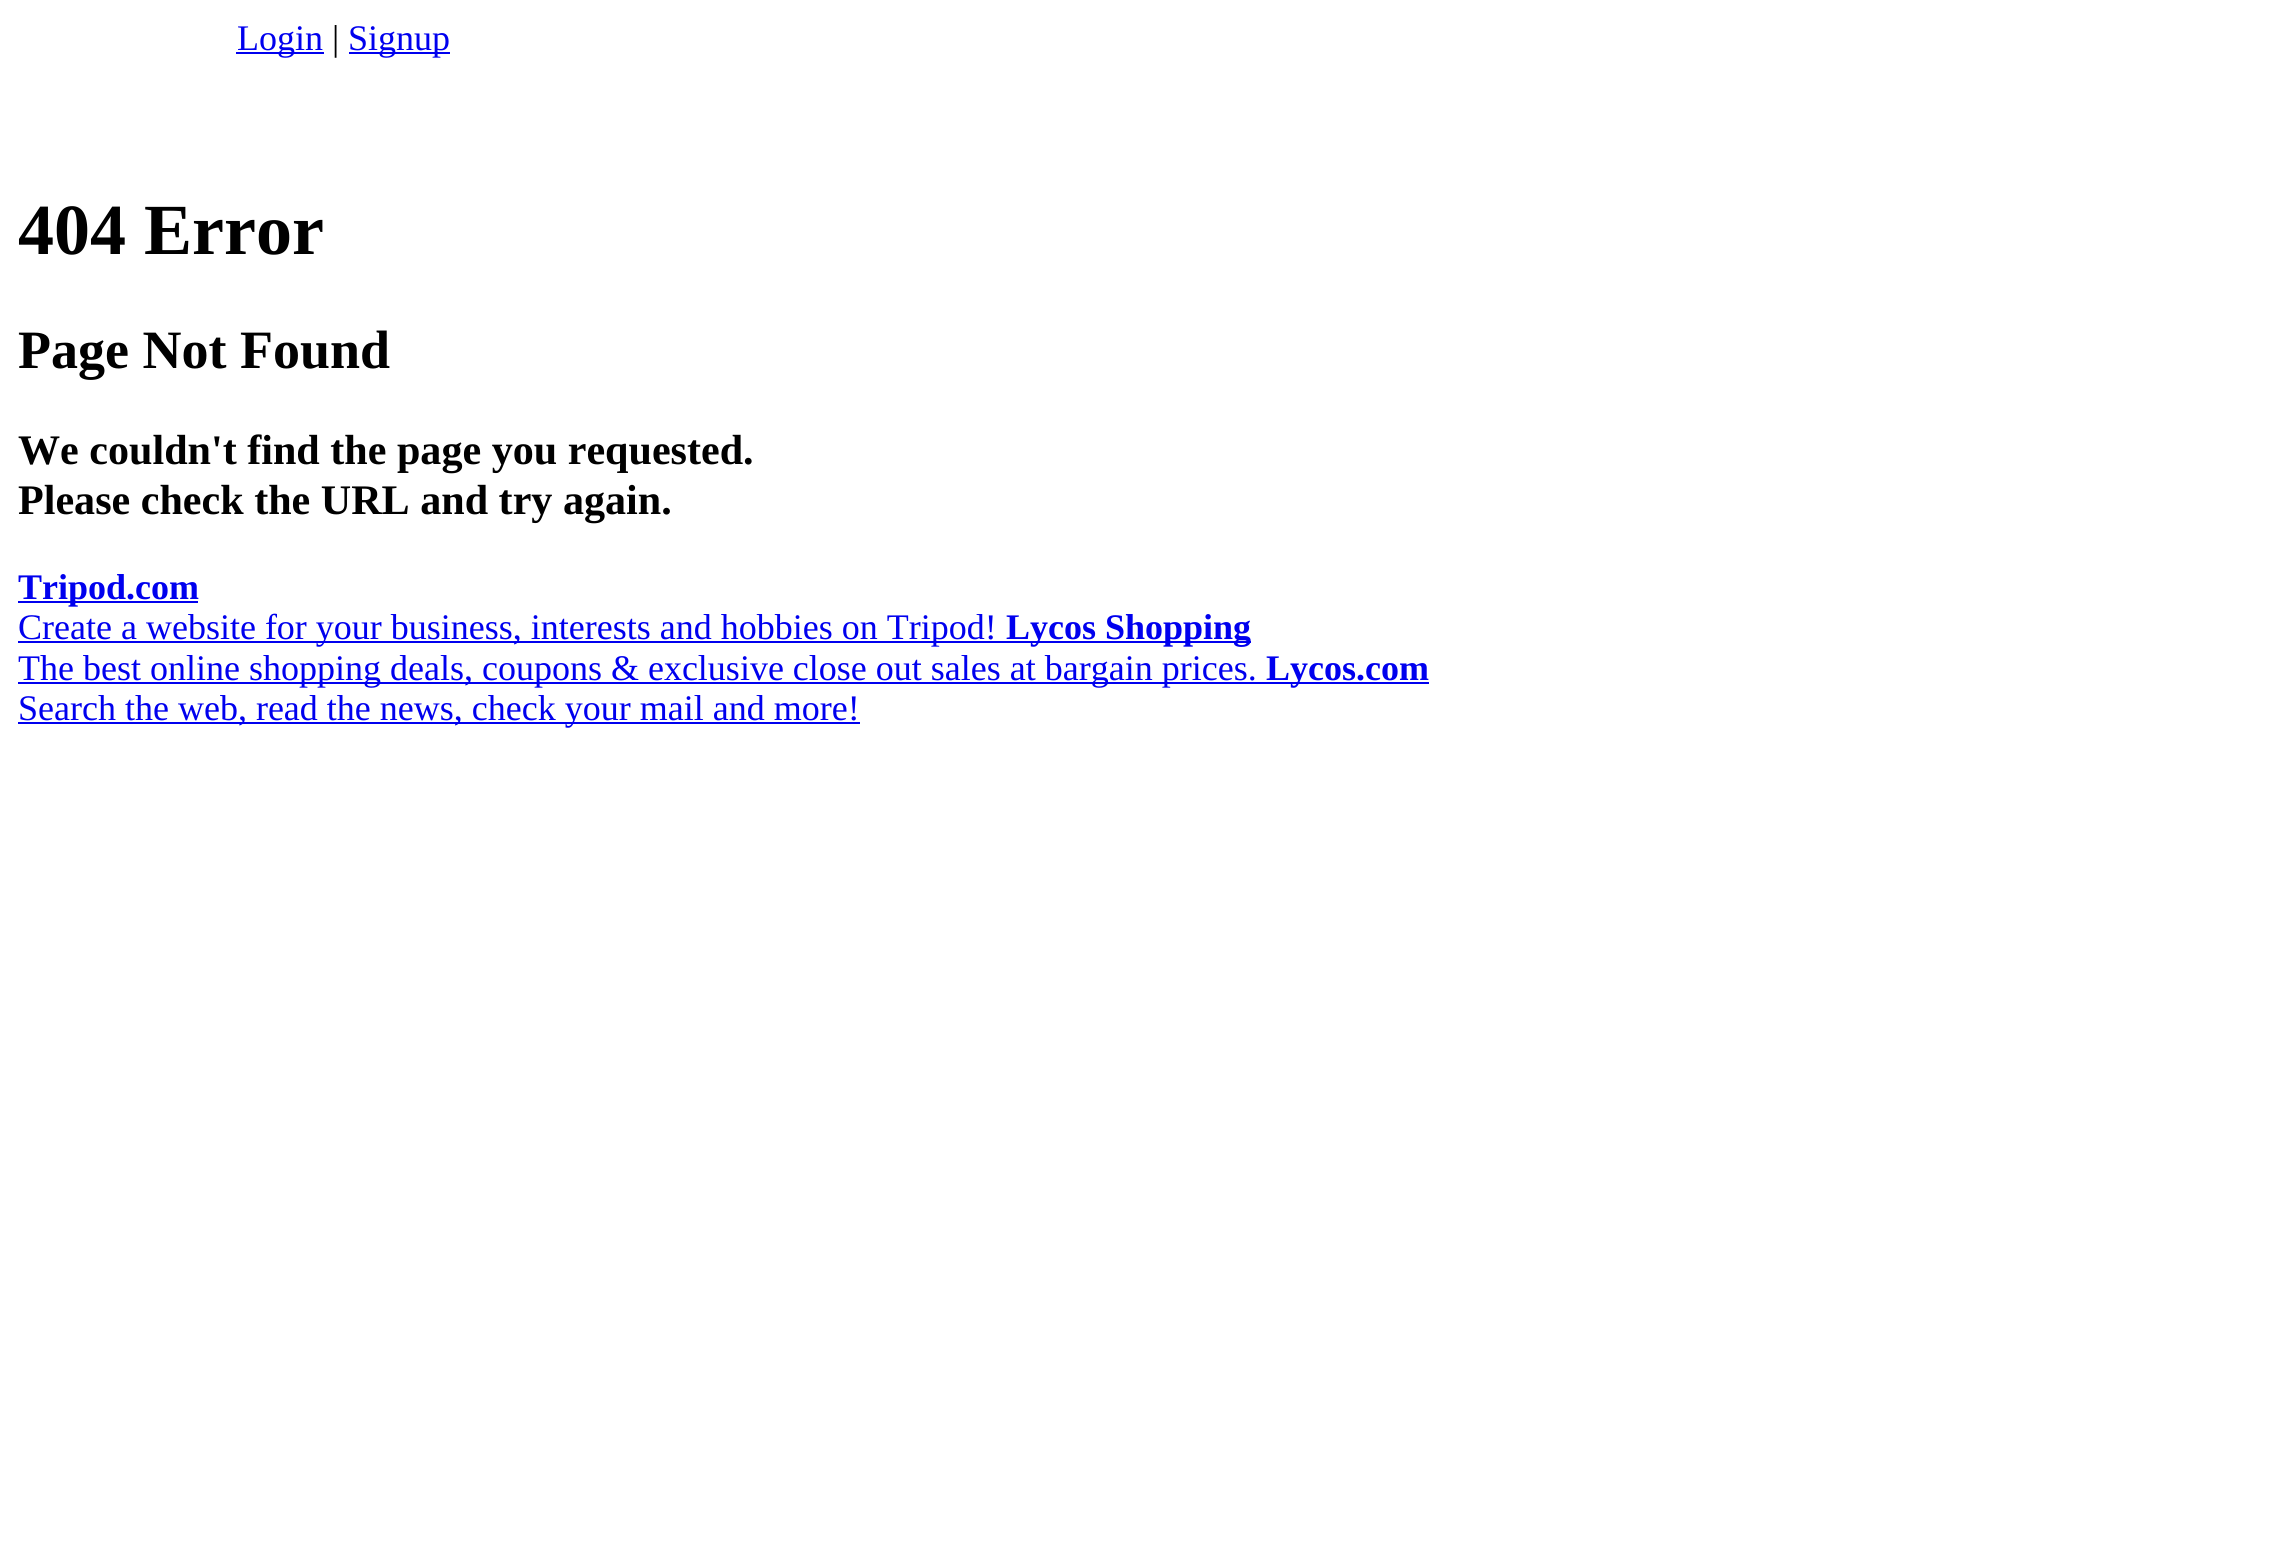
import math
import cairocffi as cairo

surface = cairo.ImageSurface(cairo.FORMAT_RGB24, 2280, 1564)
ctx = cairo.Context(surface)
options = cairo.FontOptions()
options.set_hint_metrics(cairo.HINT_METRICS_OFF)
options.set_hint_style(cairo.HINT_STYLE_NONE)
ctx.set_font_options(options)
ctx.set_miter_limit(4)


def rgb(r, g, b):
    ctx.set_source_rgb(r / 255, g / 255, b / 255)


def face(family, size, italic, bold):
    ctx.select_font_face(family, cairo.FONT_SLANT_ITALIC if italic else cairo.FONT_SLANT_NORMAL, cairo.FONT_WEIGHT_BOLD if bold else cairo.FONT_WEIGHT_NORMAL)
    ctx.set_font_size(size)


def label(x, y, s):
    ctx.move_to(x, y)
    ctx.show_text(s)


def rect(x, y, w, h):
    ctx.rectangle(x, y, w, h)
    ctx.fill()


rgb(255, 255, 255)
ctx.paint()
rgb(0, 0, 238)
rect(236, 52, 88, 2)
face('Liberation Serif', 36, 0, 0)
label(237, 50, 'Login')
rgb(0, 0, 0)
label(332, 50, '|')
rgb(0, 0, 238)
rect(349, 52, 101, 2)
label(348, 50, 'Signup')
face('Liberation Serif', 72, 0, 1)
rgb(0, 0, 0)
label(18, 254, '404 Error')
face('Liberation Serif', 54, 0, 1)
label(18, 368, 'Page Not Found')
face('Liberation Serif', 42.1, 0, 1)
label(18, 464, 'We couldn\'t find the page you requested.')
label(18, 514, 'Please check the URL and try again.')
rgb(0, 0, 238)
rect(18, 601, 180, 2)
face('Liberation Serif', 36, 0, 1)
label(18, 599, 'Tripod.com')
rect(18, 641, 1233, 2)
face('Liberation Serif', 36, 0, 0)
label(18, 639, 'Create a website for your business, interests and hobbies on Tripod!')
face('Liberation Serif', 36, 0, 1)
label(1006, 639, 'Lycos Shopping')
rect(18, 682, 1411, 2)
face('Liberation Serif', 36, 0, 0)
label(18, 680, 'The best online shopping deals, coupons & exclusive close out sales at bargain prices.')
face('Liberation Serif', 36, 0, 1)
label(1266, 680, 'Lycos.com')
rect(18, 722, 842, 2)
face('Liberation Serif', 36, 0, 0)
label(18, 720, 'Search the web, read the news, check your mail and more!')
surface.write_to_png('render.png')
